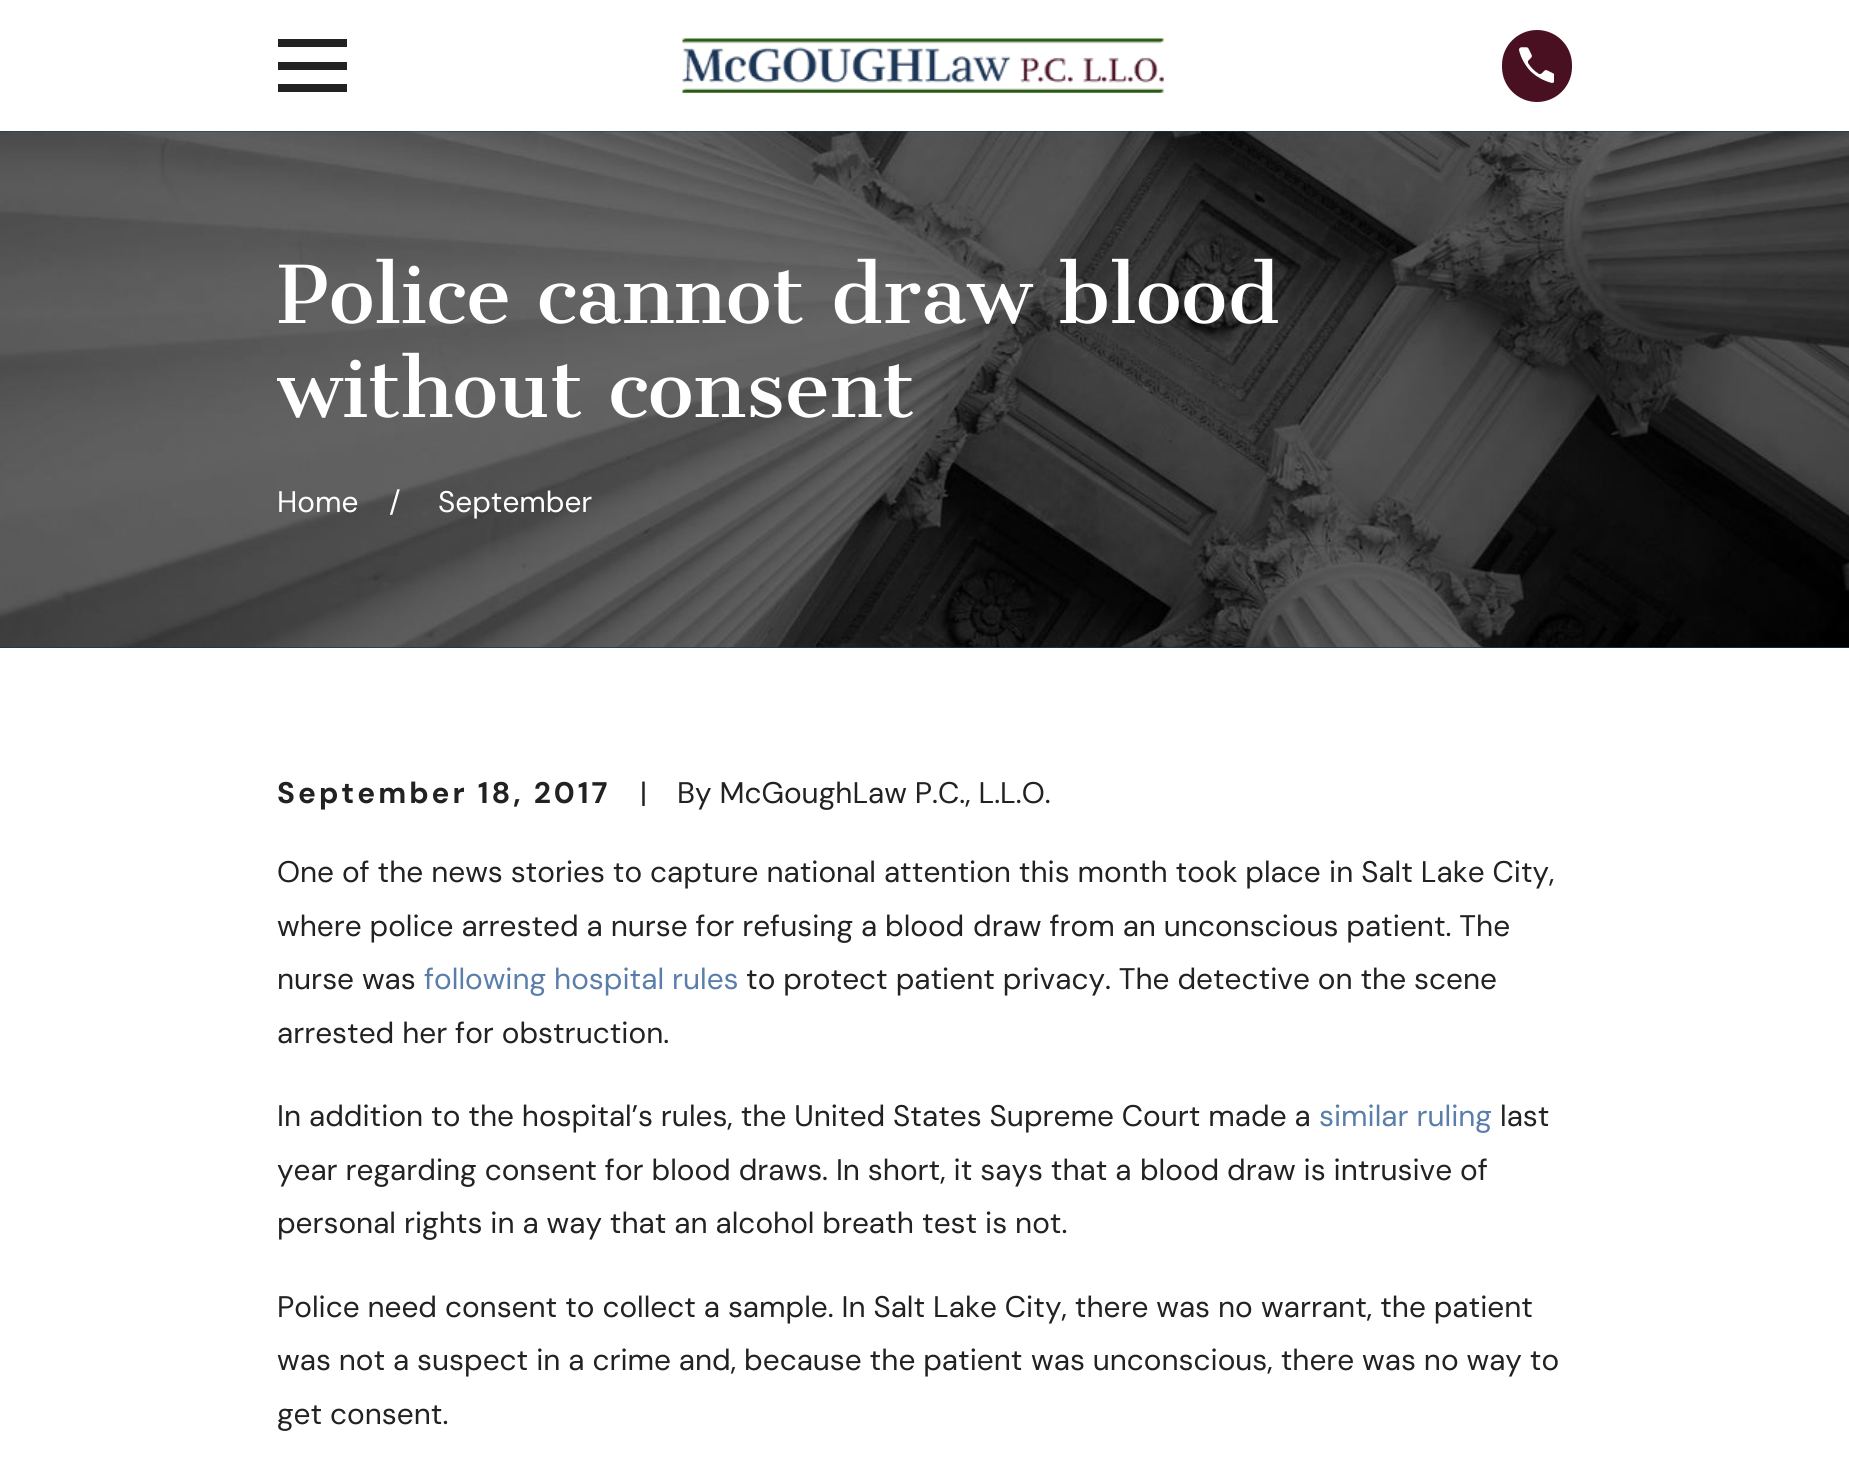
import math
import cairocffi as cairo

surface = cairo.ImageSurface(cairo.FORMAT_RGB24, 1849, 1464)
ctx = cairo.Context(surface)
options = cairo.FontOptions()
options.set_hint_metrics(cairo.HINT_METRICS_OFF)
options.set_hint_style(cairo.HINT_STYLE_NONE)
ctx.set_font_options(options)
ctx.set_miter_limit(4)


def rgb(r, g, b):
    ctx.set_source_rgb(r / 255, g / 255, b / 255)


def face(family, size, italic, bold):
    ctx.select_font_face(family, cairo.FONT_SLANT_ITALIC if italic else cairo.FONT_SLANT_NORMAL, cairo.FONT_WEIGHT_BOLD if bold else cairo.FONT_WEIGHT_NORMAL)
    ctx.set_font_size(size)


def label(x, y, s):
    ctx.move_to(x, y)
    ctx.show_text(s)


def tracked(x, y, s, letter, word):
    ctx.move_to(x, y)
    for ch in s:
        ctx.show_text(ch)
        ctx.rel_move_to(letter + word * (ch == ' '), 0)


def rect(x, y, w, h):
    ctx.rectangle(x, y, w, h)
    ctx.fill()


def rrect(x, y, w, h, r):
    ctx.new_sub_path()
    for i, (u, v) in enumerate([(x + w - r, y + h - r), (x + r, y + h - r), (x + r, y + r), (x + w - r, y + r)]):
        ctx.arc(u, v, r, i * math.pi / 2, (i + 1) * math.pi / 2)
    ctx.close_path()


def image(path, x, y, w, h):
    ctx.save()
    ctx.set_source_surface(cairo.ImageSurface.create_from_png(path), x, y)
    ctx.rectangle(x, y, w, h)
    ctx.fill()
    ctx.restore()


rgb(255, 255, 255)
ctx.paint()
rgb(34, 34, 34)
ctx.new_path()
ctx.move_to(278, 39)
ctx.line_to(278, 47)
ctx.line_to(347, 47)
ctx.line_to(347, 39)
ctx.close_path()
ctx.move_to(278, 62)
ctx.line_to(278, 70)
ctx.line_to(347, 70)
ctx.line_to(347, 62)
ctx.close_path()
ctx.move_to(278, 84)
ctx.line_to(278, 92)
ctx.line_to(347, 92)
ctx.line_to(347, 84)
ctx.close_path()
ctx.fill()
image('image0.png', 682, 38, 482, 55)
rgb(73, 16, 33)
rrect(1502, 30, 70, 72, 35)
ctx.fill()
image('image1.png', 1519, 47, 35, 36)
rgb(27, 53, 86)
rect(0, 131, 1849, 517)
image('image2.png', 0, 131, 1849, 517)
face('Cantata One', 78.1, 0, 0)
rgb(255, 255, 255)
label(277, 323, 'Police cannot draw blood')
label(277, 417, 'without consent')
face('DM Sans', 29.75, 0, 0)
label(277, 512, 'Home')
label(389, 512, '/')
label(438, 512, 'September')
face('DM Sans', 29.75, 0, 1)
rgb(34, 34, 34)
tracked(277, 803, 'September 18, 2017', 3, 0)
face('DM Sans', 29.75, 0, 0)
label(640, 803, '|')
label(677, 803, 'By McGoughLaw P.C., L.L.O.')
label(277, 882, 'One of the news stories to capture national attention this month took place')
label(1329, 882, 'in Salt Lake City,')
label(277, 936, 'where police arrested a nurse for refusing a blood')
label(973, 936, 'draw from an unconscious patient. The')
label(277, 989, 'nurse was')
rgb(90, 126, 171)
label(424, 989, 'following hospital rules')
rgb(34, 34, 34)
label(746, 989, 'to protect patient privacy. The detective on the scene')
label(277, 1043, 'arrested her for obstruction.')
label(277, 1126, 'In addition to the hospital’s rules, the United States Supreme Court made a')
rgb(90, 126, 171)
label(1319, 1126, 'similar ruling')
rgb(34, 34, 34)
label(1500, 1126, 'last')
label(277, 1180, 'year regarding consent for blood draws. In short, it says that a')
label(1140, 1180, 'blood draw is intrusive of')
label(277, 1233, 'personal rights in a way that an alcohol breath')
label(922, 1233, 'test is not.')
label(277, 1317, 'Police need consent to collect a sample. In Salt Lake City, there was no')
label(1261, 1317, 'warrant, the patient')
label(277, 1370, 'was not a suspect in a crime and, because the patient')
label(1031, 1370, 'was unconscious, there was no way to')
label(277, 1424, 'get consent.')
surface.write_to_png('render.png')
